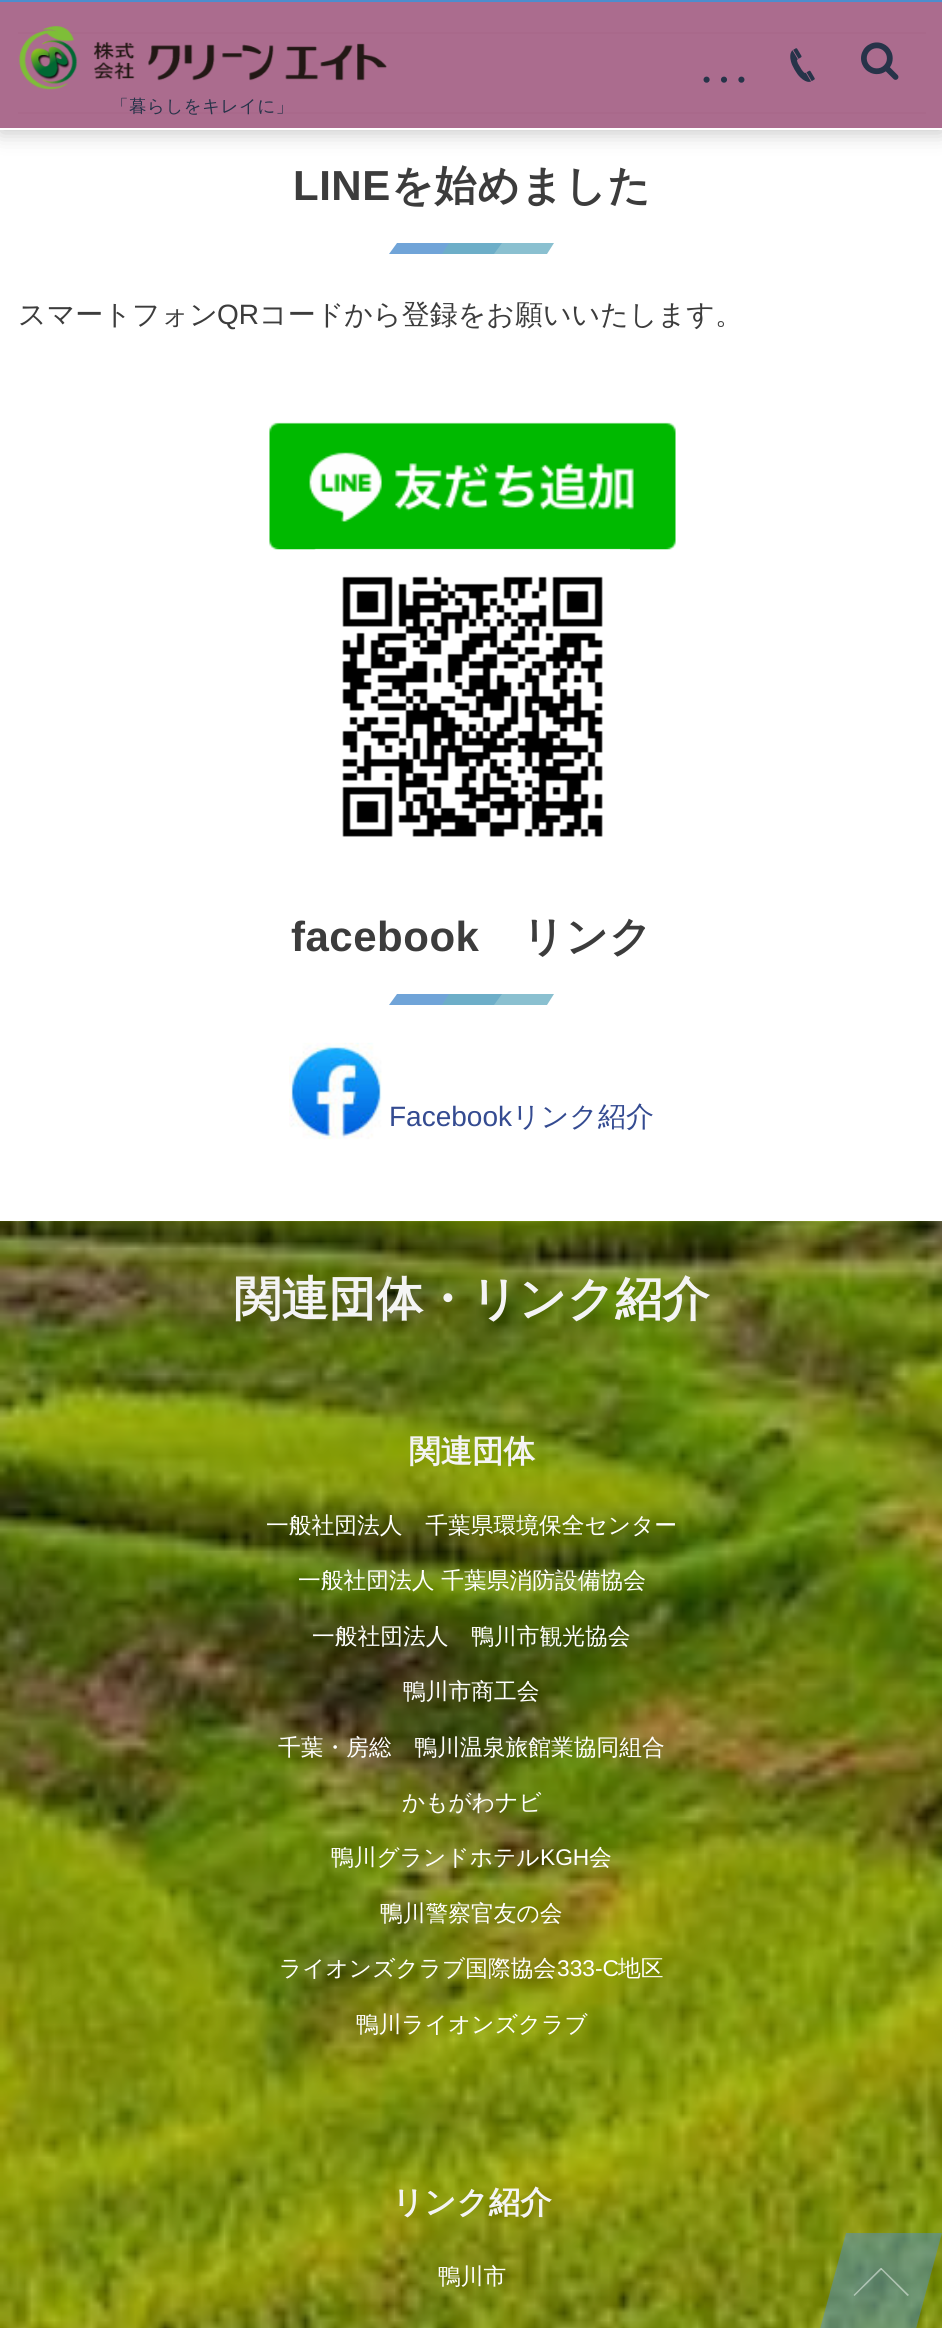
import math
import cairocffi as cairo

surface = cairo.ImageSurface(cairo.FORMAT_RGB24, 942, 2328)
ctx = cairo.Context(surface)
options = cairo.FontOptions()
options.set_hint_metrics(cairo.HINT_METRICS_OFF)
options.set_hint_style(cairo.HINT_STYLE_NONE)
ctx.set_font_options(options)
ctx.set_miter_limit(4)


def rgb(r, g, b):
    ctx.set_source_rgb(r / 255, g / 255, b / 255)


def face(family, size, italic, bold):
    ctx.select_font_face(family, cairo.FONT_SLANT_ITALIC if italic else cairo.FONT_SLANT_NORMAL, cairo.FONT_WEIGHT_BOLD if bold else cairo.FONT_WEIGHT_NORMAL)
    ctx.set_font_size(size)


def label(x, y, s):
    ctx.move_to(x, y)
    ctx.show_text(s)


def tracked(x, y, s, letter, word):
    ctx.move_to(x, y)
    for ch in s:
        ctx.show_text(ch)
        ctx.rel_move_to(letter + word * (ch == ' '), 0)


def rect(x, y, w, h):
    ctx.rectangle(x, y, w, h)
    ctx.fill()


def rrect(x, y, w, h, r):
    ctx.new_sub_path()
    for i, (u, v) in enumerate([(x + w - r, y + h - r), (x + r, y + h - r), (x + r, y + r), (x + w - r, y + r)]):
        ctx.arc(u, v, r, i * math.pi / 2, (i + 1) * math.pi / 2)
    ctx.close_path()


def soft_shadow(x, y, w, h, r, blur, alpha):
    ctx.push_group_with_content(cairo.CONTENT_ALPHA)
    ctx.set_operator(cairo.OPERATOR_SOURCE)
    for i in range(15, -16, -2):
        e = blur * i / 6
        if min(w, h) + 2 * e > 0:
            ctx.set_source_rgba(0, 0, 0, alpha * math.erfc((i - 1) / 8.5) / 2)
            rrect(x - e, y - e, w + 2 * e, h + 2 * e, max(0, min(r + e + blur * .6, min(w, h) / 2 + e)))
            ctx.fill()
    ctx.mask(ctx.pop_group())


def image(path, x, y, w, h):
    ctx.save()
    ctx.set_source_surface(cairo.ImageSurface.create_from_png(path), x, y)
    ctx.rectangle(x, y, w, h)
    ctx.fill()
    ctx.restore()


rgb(255, 255, 255)
ctx.paint()
rgb(171, 108, 142)
rect(0, 2, 942, 126)
rgb(169, 105, 139)
rect(18, 32, 908, 2)
rect(18, 112, 908, 2)
ctx.save()
ctx.set_fill_rule(cairo.FILL_RULE_EVEN_ODD)
ctx.new_path()
ctx.move_to(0, 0)
ctx.line_to(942, 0)
ctx.line_to(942, 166)
ctx.line_to(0, 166)
ctx.close_path()
ctx.move_to(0, 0)
ctx.line_to(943, 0)
ctx.line_to(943, 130)
ctx.line_to(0, 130)
ctx.close_path()
ctx.clip()
rgb(0, 0, 0)
soft_shadow(0, 4, 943, 129, 0, 10.5, 0.22)
ctx.restore()
rgb(76, 141, 206)
rect(0, 0, 942, 2)
face('Liberation Serif', 52, 0, 0)
rgb(39, 51, 73)
label(698, 82, '…')
image('image0.png', 790, 48, 25, 34)
image('image1.png', 861, 42, 38, 38)
image('image2.png', 19, 26, 368, 64)
face('WenQuanYi Zen Hei Medium', 17.5, 0, 0)
tracked(111, 112, '「暮らしをキレイに」', 0.5, 0)
face('Liberation Sans', 42, 0, 1)
rgb(60, 60, 60)
tracked(293, 200, 'LINE', 0.5, 0)
face('WenQuanYi Zen Hei', 42, 0, 1)
tracked(391, 200, 'を始めました', 0.5, 0)
rgb(112, 164, 216)
ctx.new_path()
ctx.move_to(397, 243)
ctx.line_to(502, 243)
ctx.line_to(494, 254)
ctx.line_to(389, 254)
ctx.close_path()
ctx.fill()
ctx.set_source_rgba(0.427, 0.69, 0.769, 0.8)
ctx.new_path()
ctx.move_to(449, 243)
ctx.line_to(554, 243)
ctx.line_to(547, 254)
ctx.line_to(442, 254)
ctx.close_path()
ctx.fill()
face('WenQuanYi Zen Hei Medium', 28, 0, 0)
rgb(60, 60, 60)
label(18, 324, 'スマートフォン')
face('Liberation Sans', 28, 0, 0)
label(217, 324, 'QR')
face('WenQuanYi Zen Hei Medium', 28, 0, 0)
label(259, 324, 'コードから登録をお願いいたします。')
image('image3.png', 269, 422, 407, 128)
image('image4.png', 314, 548, 316, 289)
face('Liberation Sans', 42, 0, 1)
tracked(291, 951, 'facebook', 0.5, 0)
face('WenQuanYi Zen Hei', 42, 0, 1)
tracked(522, 951, 'リンク', 0.5, 0)
rgb(112, 164, 216)
ctx.new_path()
ctx.move_to(397, 994)
ctx.line_to(502, 994)
ctx.line_to(494, 1005)
ctx.line_to(389, 1005)
ctx.close_path()
ctx.fill()
ctx.set_source_rgba(0.427, 0.69, 0.769, 0.8)
ctx.new_path()
ctx.move_to(449, 994)
ctx.line_to(554, 994)
ctx.line_to(547, 1005)
ctx.line_to(442, 1005)
ctx.close_path()
ctx.fill()
image('image5.png', 289, 1042, 93, 98)
face('Liberation Sans', 28, 0, 0)
rgb(52, 75, 145)
label(389, 1126, 'Facebook')
face('WenQuanYi Zen Hei Medium', 28, 0, 0)
label(512, 1126, 'リンク紹介')
image('image6.png', 0, 1221, 942, 1107)
face('WenQuanYi Zen Hei', 47.25, 0, 1)
rgb(244, 244, 244)
label(234, 1315, '関連団体・リンク紹介')
face('WenQuanYi Zen Hei', 31.5, 0, 1)
label(409, 1462, '関連団体')
face('WenQuanYi Zen Hei Medium', 22.75, 0, 0)
rgb(255, 255, 255)
label(266, 1533, '一般社団法人　千葉県環境保全センター')
label(298, 1588, '一般社団法人 千葉県消防設備協会')
label(312, 1644, '一般社団法人　鴨川市観光協会')
label(403, 1699, '鴨川市商工会')
label(278, 1755, '千葉・房総　鴨川温泉旅館業協同組合')
label(402, 1810, 'かもがわナビ')
label(331, 1865, '鴨川グランドホテル')
face('Liberation Sans', 22.75, 0, 0)
label(540, 1865, 'KGH')
face('WenQuanYi Zen Hei Medium', 22.75, 0, 0)
label(589, 1865, '会')
label(380, 1921, '鴨川警察官友の会')
label(279, 1976, 'ライオンズクラブ国際協会')
face('Liberation Sans', 22.75, 0, 0)
label(557, 1976, '333-C')
face('WenQuanYi Zen Hei Medium', 22.75, 0, 0)
label(618, 1976, '地区')
label(356, 2032, '鴨川ライオンズクラブ')
face('WenQuanYi Zen Hei', 31.5, 0, 1)
rgb(244, 244, 244)
label(392, 2213, 'リンク紹介')
face('WenQuanYi Zen Hei Medium', 22.75, 0, 0)
rgb(255, 255, 255)
label(438, 2284, '鴨川市')
ctx.set_source_rgba(0.298, 0.553, 0.808, 0.48)
ctx.new_path()
ctx.move_to(846, 2233)
ctx.line_to(942, 2233)
ctx.line_to(916, 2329)
ctx.line_to(820, 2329)
ctx.close_path()
ctx.fill()
ctx.set_source_rgba(1, 1, 1, 0.48)
ctx.new_path()
ctx.move_to(853.5, 2295)
ctx.line_to(880.5, 2268)
ctx.line_to(882, 2269)
ctx.line_to(854.5, 2296)
ctx.close_path()
ctx.fill()
ctx.new_path()
ctx.move_to(881.5, 2268)
ctx.line_to(909, 2295)
ctx.line_to(907.5, 2296)
ctx.line_to(880.5, 2269)
ctx.close_path()
ctx.fill()
surface.write_to_png('render.png')
